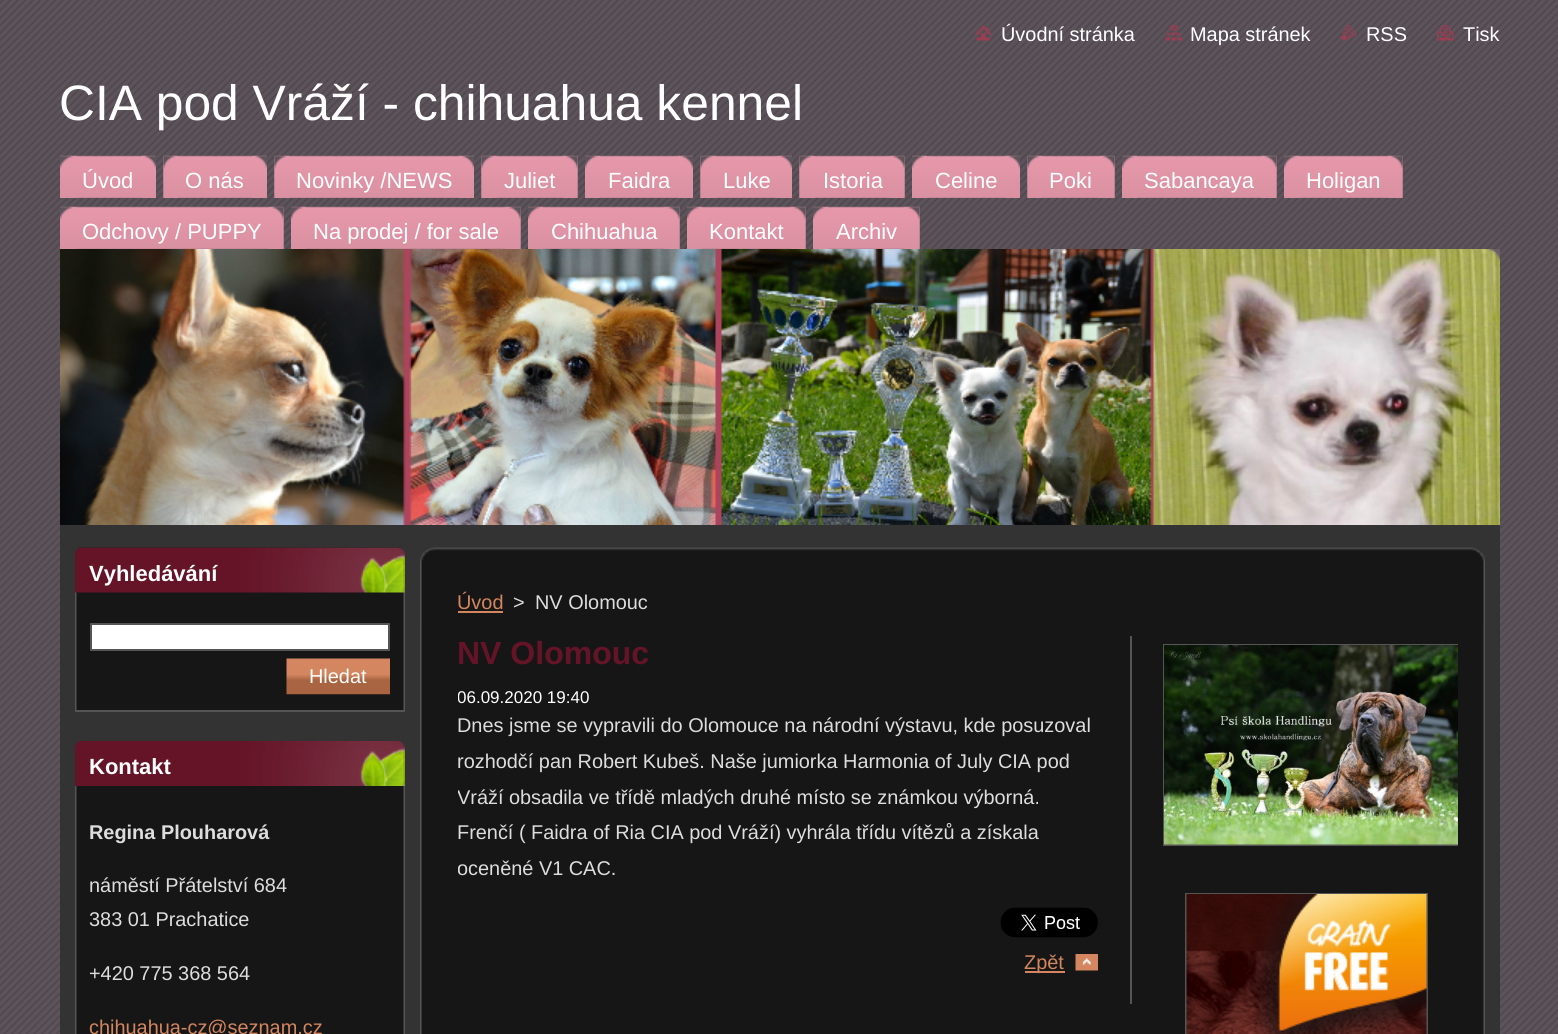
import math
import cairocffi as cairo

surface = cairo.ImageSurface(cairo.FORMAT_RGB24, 1558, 1034)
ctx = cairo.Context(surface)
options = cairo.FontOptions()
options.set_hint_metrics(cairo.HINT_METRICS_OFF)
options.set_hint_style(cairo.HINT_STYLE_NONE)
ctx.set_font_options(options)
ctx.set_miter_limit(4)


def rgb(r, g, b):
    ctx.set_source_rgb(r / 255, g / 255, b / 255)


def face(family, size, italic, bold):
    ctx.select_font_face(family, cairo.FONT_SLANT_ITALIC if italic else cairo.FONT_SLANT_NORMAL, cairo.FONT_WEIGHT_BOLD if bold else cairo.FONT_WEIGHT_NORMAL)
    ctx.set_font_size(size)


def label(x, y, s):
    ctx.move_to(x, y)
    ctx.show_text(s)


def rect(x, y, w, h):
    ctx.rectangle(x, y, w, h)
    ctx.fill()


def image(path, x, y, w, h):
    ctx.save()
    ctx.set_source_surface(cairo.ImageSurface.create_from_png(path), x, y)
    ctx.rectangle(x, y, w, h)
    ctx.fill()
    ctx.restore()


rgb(255, 255, 255)
ctx.paint()
image('image0.png', 0, 0, 1558, 1034)
image('image1.png', 975, 25, 17, 16)
face('Liberation Sans', 19.9, 0, 0)
rgb(255, 255, 255)
label(1001, 41, 'Úvodní stránka')
image('image2.png', 1165, 25, 17, 16)
label(1190, 41, 'Mapa stránek')
image('image3.png', 1341, 25, 15, 16)
label(1366, 41, 'RSS')
image('image4.png', 1437, 25, 17, 16)
label(1463, 41, 'Tisk')
face('Liberation Sans', 49.75, 0, 0)
label(59, 120, 'CIA pod Vráží - chihuahua kennel')
image('image5.png', 60, 155, 96, 43)
image('image6.png', 60, 155, 17, 43)
image('image7.png', 141, 155, 15, 43)
face('Liberation Sans', 22, 0, 0)
label(82, 188, 'Úvod')
image('image8.png', 163, 155, 104, 43)
image('image9.png', 163, 155, 16, 43)
image('image10.png', 252, 155, 15, 43)
label(185, 188, 'O nás')
image('image11.png', 274, 155, 200, 43)
image('image12.png', 274, 155, 16, 43)
image('image13.png', 459, 155, 15, 43)
label(296, 188, 'Novinky /NEWS')
image('image14.png', 481, 155, 97, 43)
image('image15.png', 481, 155, 16, 43)
image('image16.png', 562, 155, 16, 43)
label(504, 188, 'Juliet')
image('image17.png', 585, 155, 108, 43)
image('image18.png', 585, 155, 15, 43)
image('image19.png', 678, 155, 15, 43)
label(608, 188, 'Faidra')
image('image20.png', 700, 155, 92, 43)
image('image21.png', 700, 155, 16, 43)
image('image10.png', 777, 155, 15, 43)
label(723, 188, 'Luke')
image('image22.png', 799, 155, 106, 43)
image('image12.png', 799, 155, 16, 43)
image('image23.png', 889, 155, 16, 43)
label(823, 188, 'Istoria')
image('image24.png', 912, 155, 108, 43)
image('image25.png', 912, 155, 15, 43)
image('image26.png', 1005, 155, 15, 43)
label(935, 188, 'Celine')
image('image27.png', 1027, 155, 88, 43)
image('image28.png', 1027, 155, 16, 43)
image('image23.png', 1099, 155, 16, 43)
label(1049, 188, 'Poki')
image('image29.png', 1122, 155, 155, 43)
image('image30.png', 1122, 155, 15, 43)
image('image31.png', 1261, 155, 16, 43)
label(1144, 188, 'Sabancaya')
image('image32.png', 1284, 155, 119, 43)
image('image33.png', 1284, 155, 15, 43)
image('image16.png', 1387, 155, 16, 43)
label(1306, 188, 'Holigan')
image('image34.png', 60, 206, 224, 43)
image('image35.png', 60, 206, 17, 43)
image('image23.png', 268, 206, 16, 43)
label(82, 239, 'Odchovy / PUPPY')
image('image36.png', 291, 206, 230, 43)
image('image30.png', 291, 206, 15, 43)
image('image37.png', 505, 206, 16, 43)
label(313, 239, 'Na prodej / for sale')
image('image38.png', 528, 206, 152, 43)
image('image33.png', 528, 206, 15, 43)
image('image39.png', 664, 206, 16, 43)
label(551, 239, 'Chihuahua')
image('image40.png', 687, 206, 119, 43)
image('image41.png', 687, 206, 15, 43)
image('image37.png', 790, 206, 16, 43)
label(709, 239, 'Kontakt')
image('image42.png', 813, 206, 107, 43)
image('image43.png', 813, 206, 15, 43)
image('image44.png', 904, 206, 16, 43)
label(836, 239, 'Archiv')
rgb(172, 68, 93)
rect(403, 249, 751, 276)
image('image45.png', 60, 249, 1440, 276)
image('image46.png', 1488, 249, 12, 13)
rgb(51, 51, 51)
rect(60, 525, 1440, 509)
image('image47.png', 75, 547, 330, 163)
rgb(85, 85, 85)
rect(75, 710, 330, 2)
image('image48.png', 75, 547, 330, 46)
face('Liberation Sans', 22, 0, 1)
rgb(255, 255, 255)
label(89, 581, 'Vyhledávání')
ctx.rectangle(91, 624, 298, 26)
ctx.fill_preserve()
rgb(85, 85, 85)
ctx.stroke()
image('image49.png', 286, 658, 104, 37)
face('Liberation Sans', 19.9, 0, 0)
rgb(255, 255, 255)
label(309, 683, 'Hledat')
image('image50.png', 75, 786, 330, 248)
image('image51.png', 75, 741, 330, 45)
face('Liberation Sans', 22, 0, 1)
label(89, 774, 'Kontakt')
face('Liberation Sans', 19.9, 0, 1)
rgb(221, 221, 221)
label(89, 839, 'Regina Plouharová')
face('Liberation Sans', 19.9, 0, 0)
label(89, 892, 'náměstí Přátelství 684')
label(89, 926, '383 01 Prachatice')
label(89, 980, '+420 775 368 564')
rgb(211, 134, 95)
label(89, 1034, 'chihuahua-cz@seznam.cz')
image('image52.png', 420, 547, 1065, 75)
image('image53.png', 420, 622, 1065, 412)
label(457, 609, 'Úvod')
rect(458, 611, 45, 2)
rgb(221, 221, 221)
label(513, 609, '>')
label(535, 609, 'NV Olomouc')
rgb(85, 85, 85)
rect(1130, 636, 2, 368)
face('Liberation Sans', 32, 0, 1)
rgb(101, 20, 39)
label(457, 664, 'NV Olomouc')
ctx.save()
ctx.rectangle(458, 686, 640, 288)
ctx.clip()
face('Liberation Sans', 17, 0, 0)
rgb(255, 255, 255)
label(457, 703, '06.09.2020 19:40')
ctx.restore()
face('Liberation Sans', 19.9, 0, 0)
rgb(221, 221, 221)
label(457, 732, 'Dnes jsme se vypravili do Olomouce na národní výstavu, kde posuzoval')
label(457, 768, 'rozhodčí pan Robert Kubeš. Naše jumiorka Harmonia of July CIA pod')
ctx.save()
ctx.rectangle(458, 686, 640, 288)
ctx.clip()
label(457, 804, 'Vráží obsadila ve třídě mladých druhé místo se známkou výborná.')
ctx.restore()
label(457, 839, 'Frenčí ( Faidra of Ria CIA pod Vráží) vyhrála třídu vítězů a získala')
ctx.save()
ctx.rectangle(458, 686, 640, 288)
ctx.clip()
label(457, 875, 'oceněné V1 CAC.')
ctx.restore()
image('image54.png', 1000, 907, 98, 31)
image('image55.png', 1075, 954, 23, 17)
rgb(211, 134, 95)
rect(1025, 971, 40, 2)
label(1024, 969, 'Zpět')
ctx.save()
ctx.rectangle(1155, 636, 303, 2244)
ctx.clip()
ctx.rectangle(1164, 645, 301, 200)
rgb(85, 85, 85)
ctx.stroke()
ctx.restore()
image('image56.png', 1164, 645, 294, 200)
ctx.rectangle(1186, 894, 241, 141)
rgb(85, 85, 85)
ctx.stroke()
image('image57.png', 1186, 894, 241, 140)
surface.write_to_png('render.png')
